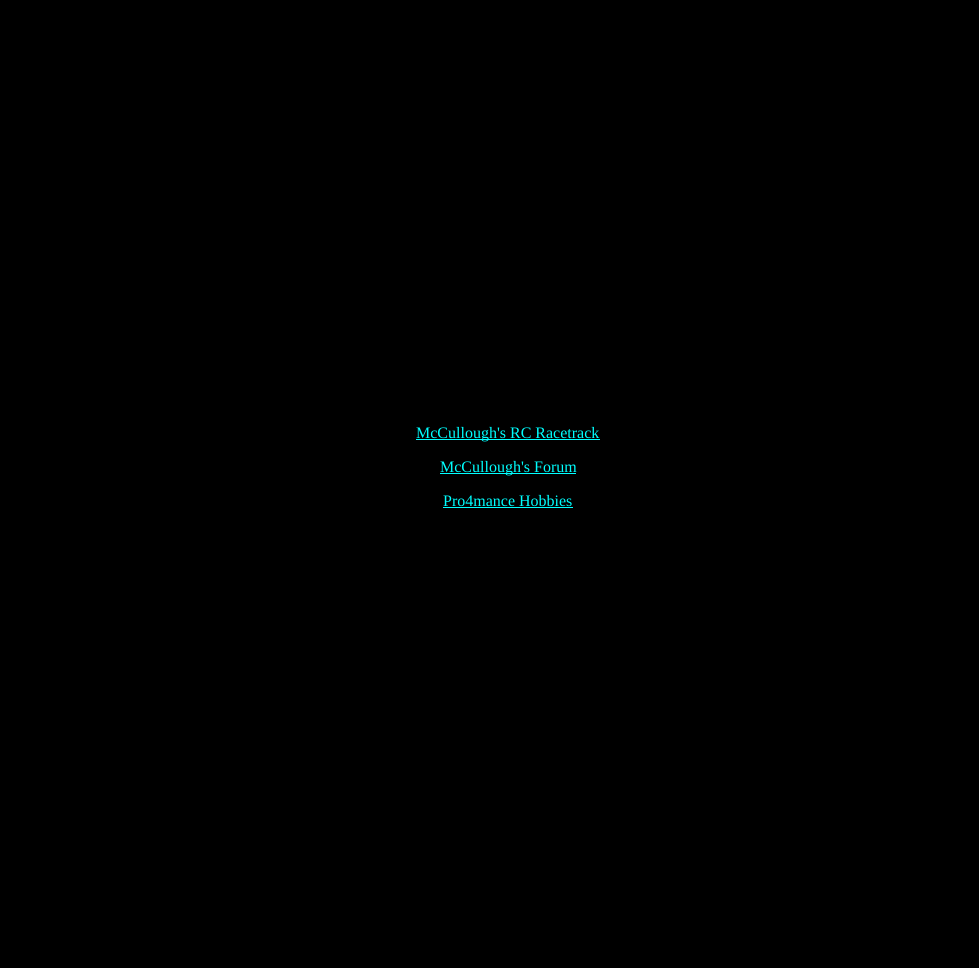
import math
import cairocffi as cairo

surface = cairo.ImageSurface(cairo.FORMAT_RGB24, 979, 968)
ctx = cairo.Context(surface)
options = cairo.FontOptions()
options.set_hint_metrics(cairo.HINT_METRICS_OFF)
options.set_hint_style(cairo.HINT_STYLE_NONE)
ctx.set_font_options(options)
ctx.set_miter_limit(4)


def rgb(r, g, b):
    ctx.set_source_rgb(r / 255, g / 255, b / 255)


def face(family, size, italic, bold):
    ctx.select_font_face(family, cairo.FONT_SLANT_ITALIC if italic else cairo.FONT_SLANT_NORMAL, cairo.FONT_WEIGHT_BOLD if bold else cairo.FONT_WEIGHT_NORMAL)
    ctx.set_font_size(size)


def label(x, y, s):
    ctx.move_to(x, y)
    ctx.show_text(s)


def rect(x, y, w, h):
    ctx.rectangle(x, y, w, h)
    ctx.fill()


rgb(0, 0, 0)
ctx.paint()
rgb(0, 255, 255)
rect(416, 439, 184, 1)
face('Liberation Serif', 16, 0, 0)
label(416, 438, 'McCullough\'s RC Racetrack')
rect(440, 473, 136, 1)
label(440, 472, 'McCullough\'s Forum')
label(443, 506, 'Pro4mance Hobbies')
rect(443, 507, 130, 1)
surface.write_to_png('render.png')
